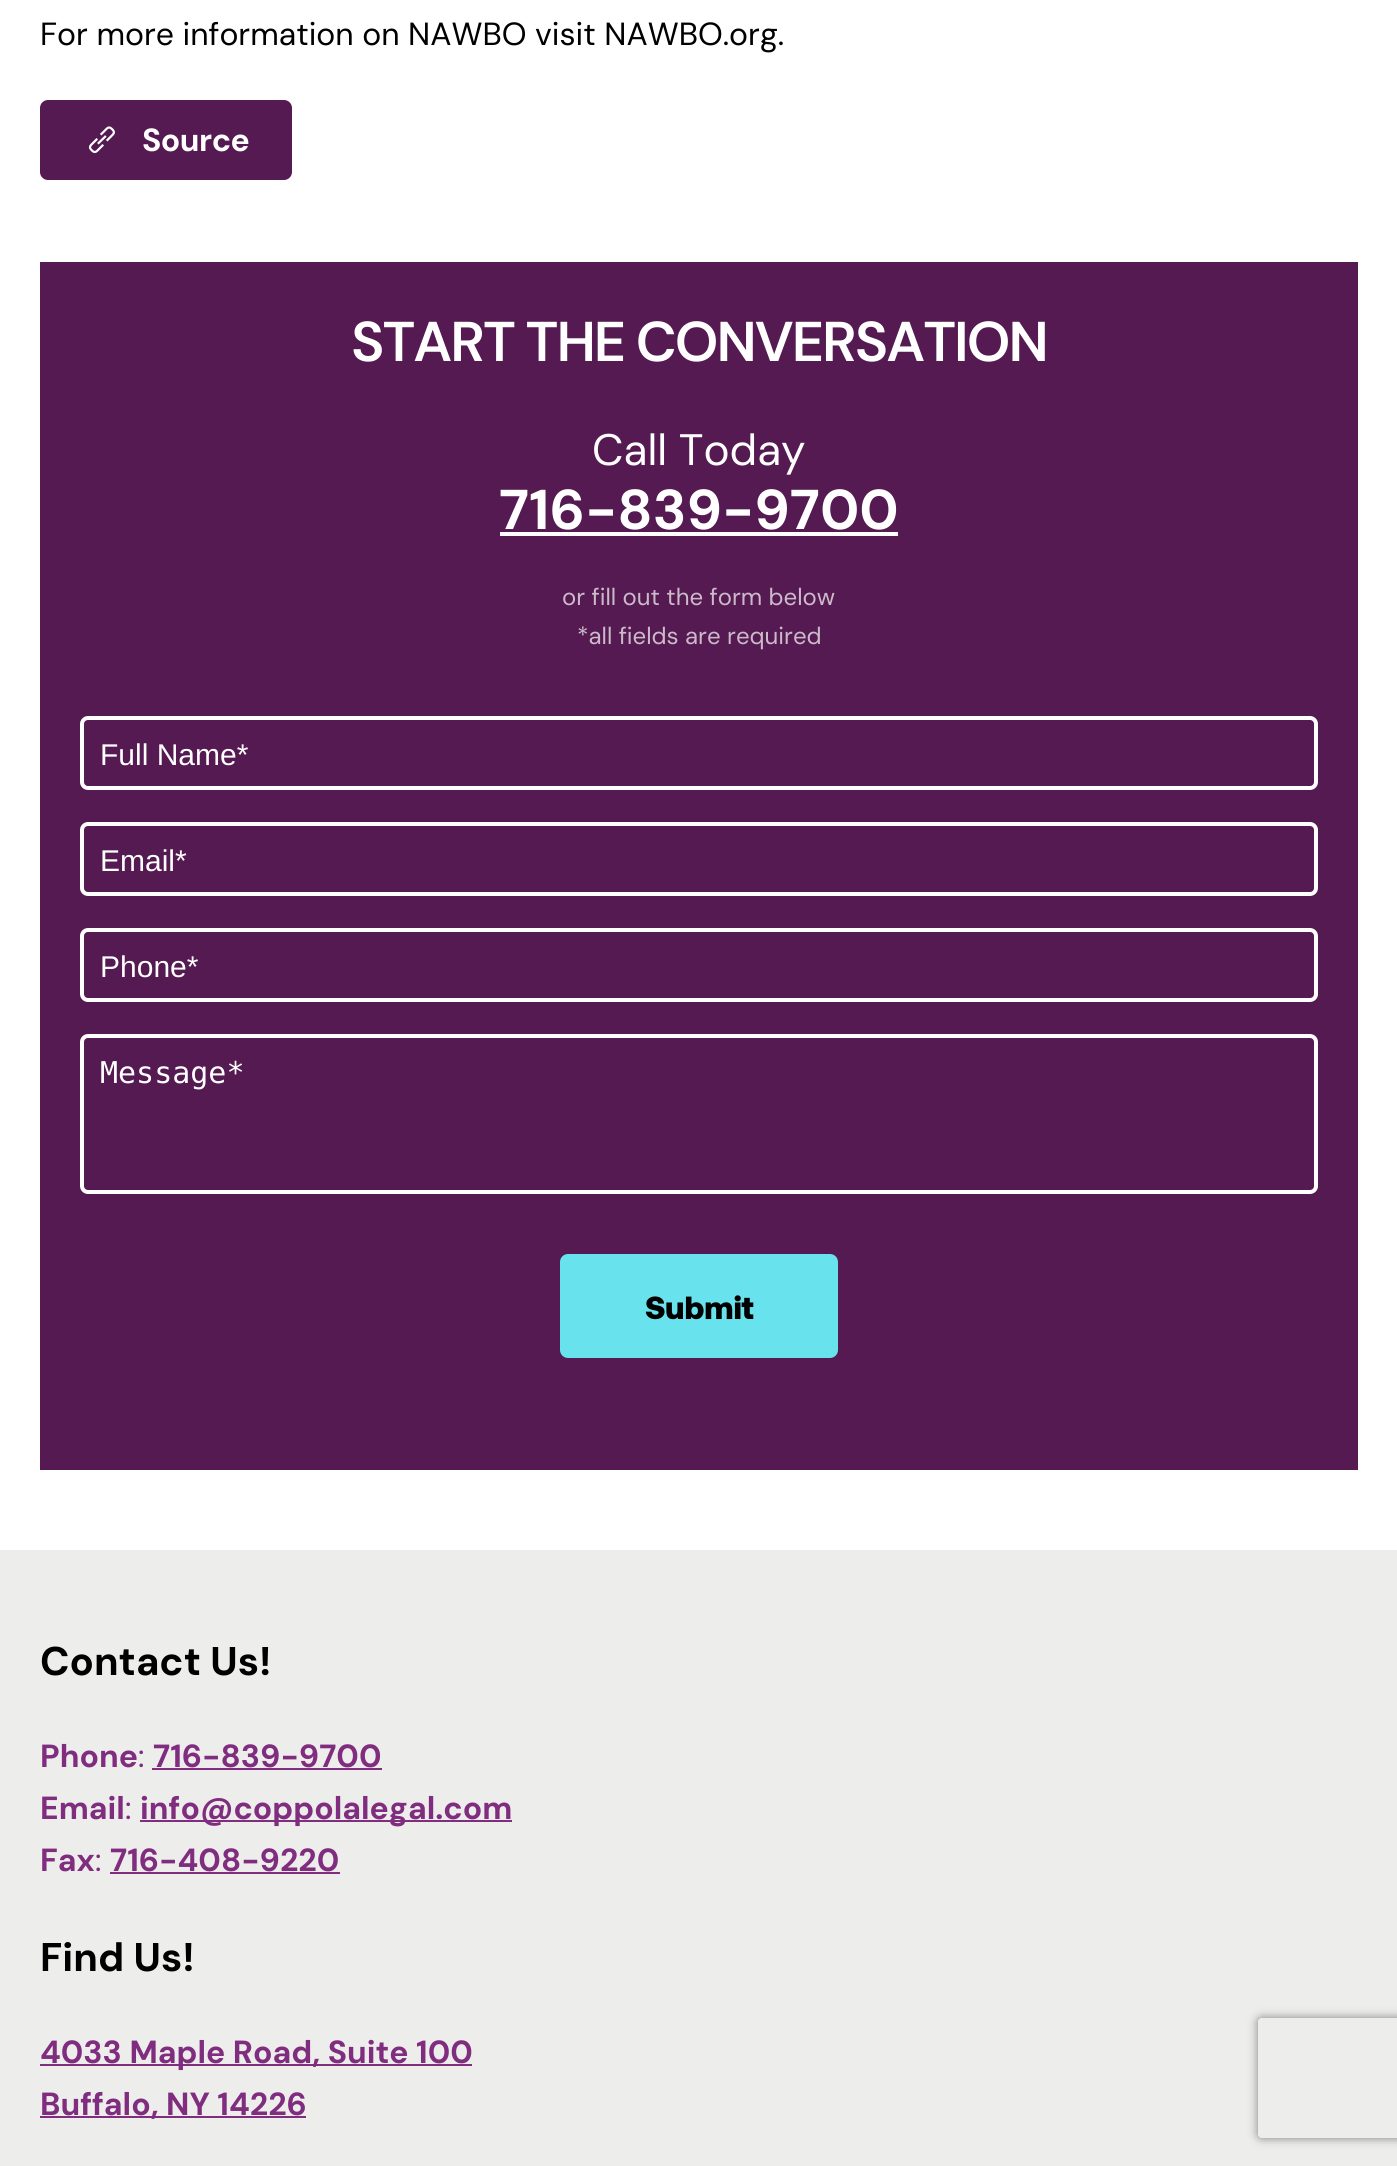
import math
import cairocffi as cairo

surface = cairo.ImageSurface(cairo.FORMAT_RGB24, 1397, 2166)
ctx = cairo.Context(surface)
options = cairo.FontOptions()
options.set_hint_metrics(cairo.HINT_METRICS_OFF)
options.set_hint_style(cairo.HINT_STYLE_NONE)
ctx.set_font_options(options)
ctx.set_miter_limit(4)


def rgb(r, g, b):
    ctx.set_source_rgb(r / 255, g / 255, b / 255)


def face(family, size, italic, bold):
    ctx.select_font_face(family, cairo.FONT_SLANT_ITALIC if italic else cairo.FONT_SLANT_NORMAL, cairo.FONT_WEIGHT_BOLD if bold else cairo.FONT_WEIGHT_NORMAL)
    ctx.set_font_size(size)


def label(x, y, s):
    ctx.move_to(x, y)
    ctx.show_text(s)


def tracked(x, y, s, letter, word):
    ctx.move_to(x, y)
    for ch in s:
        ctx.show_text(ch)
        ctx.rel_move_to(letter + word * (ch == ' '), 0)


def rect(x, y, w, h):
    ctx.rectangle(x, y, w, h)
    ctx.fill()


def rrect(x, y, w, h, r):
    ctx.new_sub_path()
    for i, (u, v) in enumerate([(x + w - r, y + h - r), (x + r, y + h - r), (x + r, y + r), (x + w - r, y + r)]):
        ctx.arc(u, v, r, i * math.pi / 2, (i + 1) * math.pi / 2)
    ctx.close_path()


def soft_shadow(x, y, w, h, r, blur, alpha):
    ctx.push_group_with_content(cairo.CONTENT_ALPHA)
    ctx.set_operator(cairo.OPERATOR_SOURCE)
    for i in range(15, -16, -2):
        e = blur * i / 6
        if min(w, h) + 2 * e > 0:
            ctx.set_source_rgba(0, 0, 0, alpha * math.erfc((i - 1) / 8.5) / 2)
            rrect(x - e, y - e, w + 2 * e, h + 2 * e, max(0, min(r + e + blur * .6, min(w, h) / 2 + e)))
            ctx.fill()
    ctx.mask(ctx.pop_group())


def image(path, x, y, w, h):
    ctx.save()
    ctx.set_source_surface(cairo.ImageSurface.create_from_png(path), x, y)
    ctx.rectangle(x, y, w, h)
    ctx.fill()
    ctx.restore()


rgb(255, 255, 255)
ctx.paint()
face('DM Sans', 32, 0, 0)
rgb(0, 0, 0)
label(40, 45, 'For more information on NAWBO visit NAWBO.org.')
rgb(84, 26, 81)
rrect(40, 100, 252, 80, 8)
ctx.fill()
image('image0.png', 88, 126, 27, 28)
face('DM Sans', 32, 0, 1)
rgb(255, 255, 255)
tracked(142, 151, 'Source', -0.5, 0)
rgb(84, 26, 81)
rect(40, 262, 1318, 1208)
face('DM Sans SemiBold', 56, 0, 0)
rgb(255, 255, 255)
tracked(351, 361, 'START THE CONVERSATION', -2, 0)
face('DM Sans', 44, 0, 0)
label(592, 465, 'Call Today')
face('DM Sans', 56, 0, 1)
label(499, 529, '716-839-9700')
rect(500, 532, 398, 4)
face('DM Sans', 24, 0, 0)
rgb(204, 186, 203)
label(562, 605, 'or fill out the form below')
label(577, 644, '*all fields are required')
rrect(82, 718, 1234, 70, 6)
rgb(255, 255, 255)
ctx.set_line_width(4)
ctx.stroke()
face('Liberation Sans', 30, 0, 0)
label(100, 765, 'Full Name*')
rrect(82, 824, 1234, 70, 6)
ctx.stroke()
label(100, 871, 'Email*')
rrect(82, 930, 1234, 70, 6)
ctx.stroke()
label(100, 977, 'Phone*')
rrect(82, 1036, 1234, 156, 6)
ctx.stroke()
face('DejaVu Sans Mono', 30, 0, 0)
label(100, 1083, 'Message*')
rgb(104, 226, 237)
rrect(560, 1254, 278, 104, 8)
ctx.fill()
face('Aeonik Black', 32, 0, 0)
rgb(0, 0, 0)
label(645, 1319, 'Submit')
rgb(237, 237, 235)
rect(0, 1550, 1397, 616)
face('DM Sans', 40, 0, 1)
rgb(0, 0, 0)
label(40, 1675, 'Contact Us!')
face('DM Sans', 32, 0, 1)
rgb(128, 45, 128)
label(40, 1767, 'Phone')
face('DM Sans', 32, 0, 0)
label(138, 1767, ':')
face('DM Sans', 32, 0, 1)
label(153, 1767, '716-839-9700')
rect(152, 1768, 230, 2)
label(40, 1819, 'Email')
face('DM Sans', 32, 0, 0)
label(125, 1819, ':')
rect(140, 1820, 372, 2)
face('DM Sans', 32, 0, 1)
label(140, 1819, 'info@coppolalegal.com')
label(40, 1871, 'Fax')
face('DM Sans', 32, 0, 0)
label(95, 1871, ':')
face('DM Sans', 32, 0, 1)
label(110, 1871, '716-408-9220')
rect(110, 1872, 230, 2)
face('DM Sans', 40, 0, 1)
rgb(0, 0, 0)
label(40, 1971, 'Find Us!')
rgb(128, 45, 128)
rect(40, 2064, 432, 2)
face('DM Sans', 32, 0, 1)
label(40, 2063, '4033 Maple Road, Suite 100')
rect(40, 2116, 266, 2)
label(40, 2115, 'Buffalo, NY 14226')
ctx.save()
ctx.set_fill_rule(cairo.FILL_RULE_EVEN_ODD)
ctx.new_path()
ctx.move_to(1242, 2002)
ctx.line_to(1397, 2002)
ctx.line_to(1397, 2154)
ctx.line_to(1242, 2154)
ctx.close_path()
ctx.move_to(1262, 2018)
ctx.line_to(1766, 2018)
ctx.curve_to(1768, 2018, 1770, 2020, 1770, 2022)
ctx.line_to(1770, 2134)
ctx.curve_to(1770, 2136, 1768, 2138, 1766, 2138)
ctx.line_to(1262, 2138)
ctx.curve_to(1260, 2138, 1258, 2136, 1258, 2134)
ctx.line_to(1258, 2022)
ctx.curve_to(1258, 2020, 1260, 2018, 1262, 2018)
ctx.close_path()
ctx.clip()
rgb(128, 128, 128)
soft_shadow(1258, 2018, 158, 120, 4, 5, 1)
ctx.restore()
surface.write_to_png('render.png')
